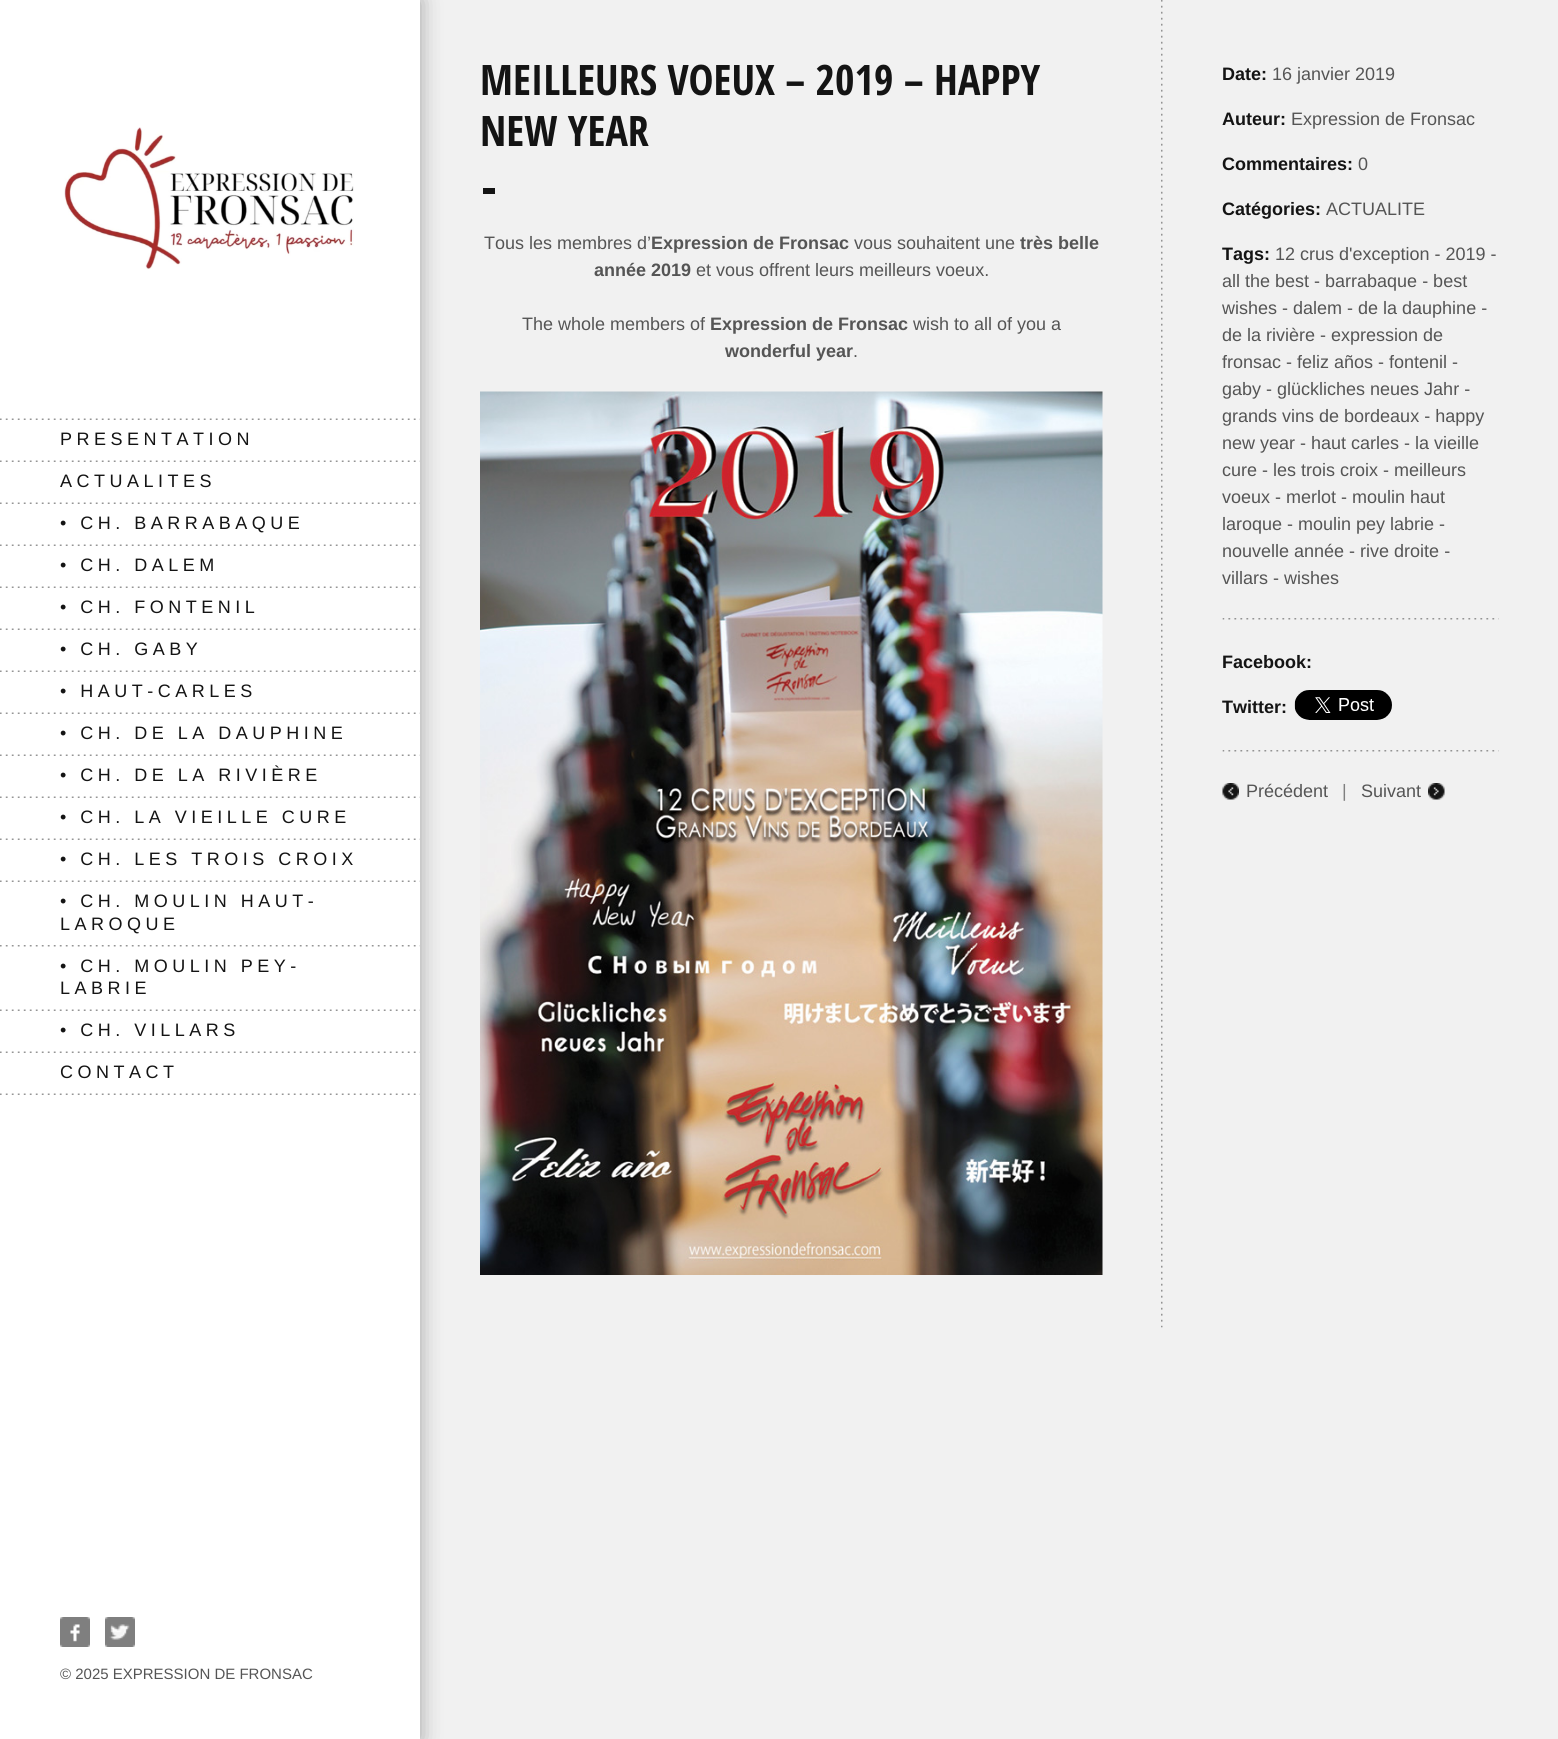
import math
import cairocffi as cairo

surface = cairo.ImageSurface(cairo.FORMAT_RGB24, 1558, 1739)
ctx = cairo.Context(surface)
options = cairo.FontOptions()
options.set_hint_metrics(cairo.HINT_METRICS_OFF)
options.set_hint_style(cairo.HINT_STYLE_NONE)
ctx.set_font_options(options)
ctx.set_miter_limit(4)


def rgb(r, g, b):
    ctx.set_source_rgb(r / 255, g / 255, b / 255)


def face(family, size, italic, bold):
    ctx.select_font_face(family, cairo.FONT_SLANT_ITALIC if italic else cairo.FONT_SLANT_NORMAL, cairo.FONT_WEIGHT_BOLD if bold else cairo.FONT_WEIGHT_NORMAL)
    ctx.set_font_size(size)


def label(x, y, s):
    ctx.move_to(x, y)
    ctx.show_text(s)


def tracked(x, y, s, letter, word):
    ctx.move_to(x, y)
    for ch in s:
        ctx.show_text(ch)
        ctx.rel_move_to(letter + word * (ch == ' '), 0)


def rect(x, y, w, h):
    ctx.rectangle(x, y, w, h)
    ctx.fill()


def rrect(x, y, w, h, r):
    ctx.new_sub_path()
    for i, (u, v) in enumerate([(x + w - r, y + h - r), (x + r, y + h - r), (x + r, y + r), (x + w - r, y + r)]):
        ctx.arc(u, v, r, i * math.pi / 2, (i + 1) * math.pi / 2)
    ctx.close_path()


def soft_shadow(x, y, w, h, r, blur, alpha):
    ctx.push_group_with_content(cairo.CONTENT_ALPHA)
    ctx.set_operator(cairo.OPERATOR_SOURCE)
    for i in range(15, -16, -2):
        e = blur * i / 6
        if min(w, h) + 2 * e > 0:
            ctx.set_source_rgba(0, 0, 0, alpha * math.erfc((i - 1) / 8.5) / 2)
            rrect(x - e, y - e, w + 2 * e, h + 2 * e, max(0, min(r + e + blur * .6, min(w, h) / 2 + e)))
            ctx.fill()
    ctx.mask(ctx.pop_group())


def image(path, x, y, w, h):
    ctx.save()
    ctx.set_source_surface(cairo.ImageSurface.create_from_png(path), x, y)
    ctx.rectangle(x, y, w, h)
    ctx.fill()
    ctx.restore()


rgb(241, 241, 241)
ctx.paint()
rgb(0, 0, 0)
soft_shadow(0, 0, 420, 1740, 0, 11, 0.33)
rgb(255, 255, 255)
rect(0, 0, 420, 1739)
image('image0.png', 64, 127, 290, 143)
image('image1.png', 0, 418, 420, 2)
image('image1.png', 0, 460, 420, 2)
face('Liberation Sans', 18, 0, 0)
rgb(20, 20, 20)
tracked(60, 445, 'PRESENTATION', 4.5, 0)
image('image1.png', 0, 502, 420, 2)
tracked(60, 487, 'ACTUALITES', 4.5, 0)
image('image1.png', 0, 544, 420, 2)
tracked(60, 529, '• CH. BARRABAQUE', 4.5, 0)
image('image2.png', 0, 586, 420, 2)
tracked(60, 571, '• CH. DALEM', 4.5, 0)
image('image1.png', 0, 628, 420, 2)
tracked(60, 613, '• CH. FONTENIL', 4.5, 0)
image('image1.png', 0, 670, 420, 2)
tracked(60, 655, '• CH. GABY', 4.5, 0)
image('image1.png', 0, 712, 420, 2)
tracked(60, 697, '• HAUT-CARLES', 4.5, 0)
image('image1.png', 0, 754, 420, 2)
tracked(60, 739, '• CH. DE LA DAUPHINE', 4.5, 0)
image('image1.png', 0, 796, 420, 2)
tracked(60, 781, '• CH. DE LA RIVIÈRE', 4.5, 0)
image('image1.png', 0, 838, 420, 2)
tracked(60, 823, '• CH. LA VIEILLE CURE', 4.5, 0)
image('image1.png', 0, 880, 420, 2)
tracked(60, 865, '• CH. LES TROIS CROIX', 4.5, 0)
image('image3.png', 0, 945, 420, 2)
tracked(60, 907, '• CH. MOULIN HAUT-', 4.5, 0)
tracked(60, 930, 'LAROQUE', 4.5, 0)
image('image2.png', 0, 1009, 420, 2)
tracked(60, 972, '• CH. MOULIN PEY-', 4.5, 0)
tracked(60, 994, 'LABRIE', 4.5, 0)
image('image1.png', 0, 1051, 420, 2)
tracked(60, 1036, '• CH. VILLARS', 4.5, 0)
image('image1.png', 0, 1093, 420, 2)
tracked(60, 1078, 'CONTACT', 4.5, 0)
image('image4.png', 60, 1617, 30, 30)
image('image5.png', 105, 1617, 30, 30)
face('Liberation Sans', 15, 0, 0)
rgb(85, 85, 85)
label(60, 1679, '© 2025 EXPRESSION DE FRONSAC')
image('image6.png', 1161, 0, 2, 1328)
face('Open Sans Condensed', 42, 0, 1)
rgb(20, 20, 20)
label(480, 95, 'MEILLEURS VOEUX – 2019 – HAPPY')
label(480, 146, 'NEW YEAR')
rect(483, 188, 12, 6)
face('Liberation Sans', 18, 0, 0)
rgb(85, 85, 85)
label(484, 249, 'Tous les membres d’')
face('Liberation Sans', 18, 0, 1)
label(651, 249, 'Expression de Fronsac')
face('Liberation Sans', 18, 0, 0)
label(854, 249, 'vous souhaitent une')
face('Liberation Sans', 18, 0, 1)
label(1020, 249, 'très belle')
label(594, 276, 'année 2019')
face('Liberation Sans', 18, 0, 0)
label(696, 276, 'et vous offrent leurs meilleurs voeux.')
label(522, 330, 'The whole members of')
face('Liberation Sans', 18, 0, 1)
label(710, 330, 'Expression de Fronsac')
face('Liberation Sans', 18, 0, 0)
label(913, 330, 'wish to all of you a')
face('Liberation Sans', 18, 0, 1)
label(725, 357, 'wonderful year')
face('Liberation Sans', 18, 0, 0)
label(853, 357, '.')
image('image7.png', 480, 391, 623, 884)
face('Liberation Sans', 18, 0, 1)
rgb(20, 20, 20)
label(1222, 80, 'Date:')
face('Liberation Sans', 18, 0, 0)
rgb(85, 85, 85)
label(1272, 80, '16 janvier 2019')
face('Liberation Sans', 18, 0, 1)
rgb(20, 20, 20)
label(1222, 125, 'Auteur:')
face('Liberation Sans', 18, 0, 0)
rgb(85, 85, 85)
label(1291, 125, 'Expression de Fronsac')
face('Liberation Sans', 18, 0, 1)
rgb(20, 20, 20)
label(1222, 170, 'Commentaires:')
face('Liberation Sans', 18, 0, 0)
rgb(85, 85, 85)
label(1358, 170, '0')
face('Liberation Sans', 18, 0, 1)
rgb(20, 20, 20)
label(1222, 215, 'Catégories:')
face('Liberation Sans', 18, 0, 0)
rgb(85, 85, 85)
label(1326, 215, 'ACTUALITE')
face('Liberation Sans', 18, 0, 1)
rgb(20, 20, 20)
label(1222, 260, 'Tags:')
face('Liberation Sans', 18, 0, 0)
rgb(85, 85, 85)
label(1275, 260, '12 crus d\'exception - 2019 -')
label(1222, 287, 'all the best - barrabaque - best')
label(1222, 314, 'wishes - dalem - de la dauphine -')
label(1222, 341, 'de la rivière - expression de')
label(1222, 368, 'fronsac - feliz años - fontenil -')
label(1222, 395, 'gaby - glückliches neues Jahr -')
label(1222, 422, 'grands vins de bordeaux - happy')
label(1222, 449, 'new year - haut carles - la vieille')
label(1222, 476, 'cure - les trois croix - meilleurs')
label(1222, 503, 'voeux - merlot - moulin haut')
label(1222, 530, 'laroque - moulin pey labrie -')
label(1222, 557, 'nouvelle année - rive droite -')
label(1222, 584, 'villars - wishes')
image('image8.png', 1222, 618, 277, 2)
face('Liberation Sans', 18, 0, 1)
rgb(20, 20, 20)
label(1222, 668, 'Facebook:')
label(1222, 713, 'Twitter:')
image('image9.png', 1294, 690, 98, 30)
image('image8.png', 1222, 750, 277, 2)
image('image10.png', 1222, 783, 17, 17)
face('Liberation Sans', 18, 0, 0)
rgb(85, 85, 85)
label(1246, 797, 'Précédent')
rgb(128, 128, 128)
label(1342, 797, '|')
rgb(85, 85, 85)
label(1361, 797, 'Suivant')
image('image11.png', 1428, 783, 17, 17)
surface.write_to_png('render.png')
